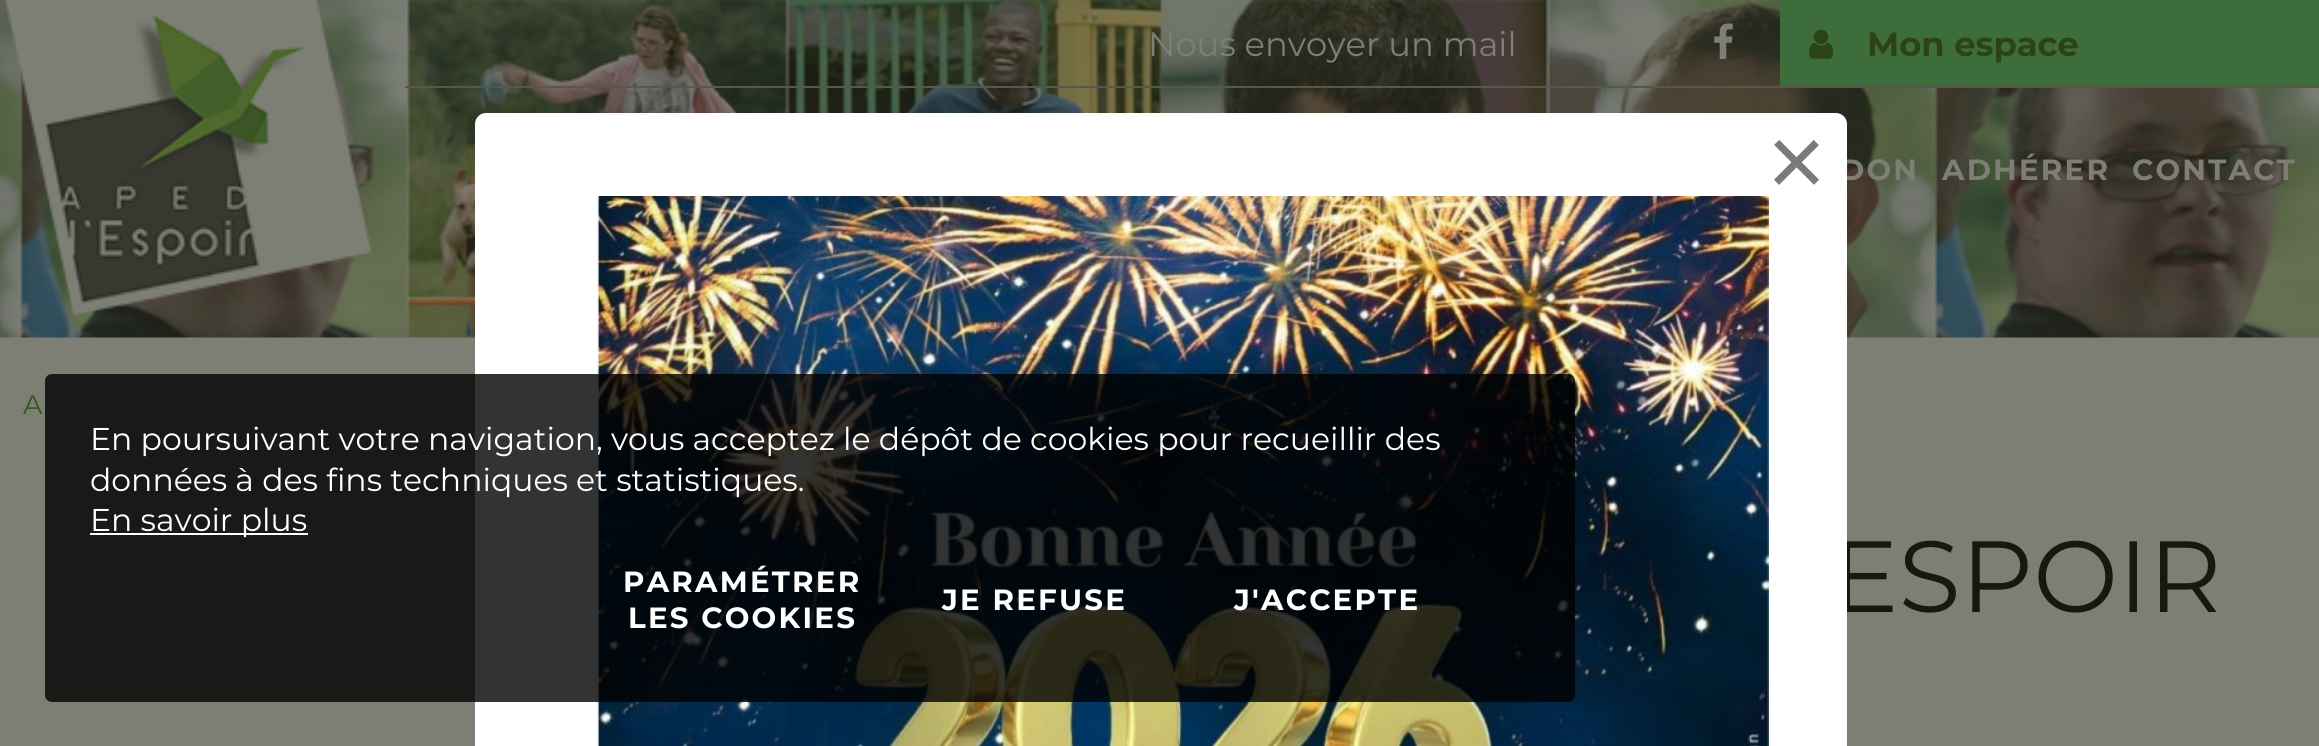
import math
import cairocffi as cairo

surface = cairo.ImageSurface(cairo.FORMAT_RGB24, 2319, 746)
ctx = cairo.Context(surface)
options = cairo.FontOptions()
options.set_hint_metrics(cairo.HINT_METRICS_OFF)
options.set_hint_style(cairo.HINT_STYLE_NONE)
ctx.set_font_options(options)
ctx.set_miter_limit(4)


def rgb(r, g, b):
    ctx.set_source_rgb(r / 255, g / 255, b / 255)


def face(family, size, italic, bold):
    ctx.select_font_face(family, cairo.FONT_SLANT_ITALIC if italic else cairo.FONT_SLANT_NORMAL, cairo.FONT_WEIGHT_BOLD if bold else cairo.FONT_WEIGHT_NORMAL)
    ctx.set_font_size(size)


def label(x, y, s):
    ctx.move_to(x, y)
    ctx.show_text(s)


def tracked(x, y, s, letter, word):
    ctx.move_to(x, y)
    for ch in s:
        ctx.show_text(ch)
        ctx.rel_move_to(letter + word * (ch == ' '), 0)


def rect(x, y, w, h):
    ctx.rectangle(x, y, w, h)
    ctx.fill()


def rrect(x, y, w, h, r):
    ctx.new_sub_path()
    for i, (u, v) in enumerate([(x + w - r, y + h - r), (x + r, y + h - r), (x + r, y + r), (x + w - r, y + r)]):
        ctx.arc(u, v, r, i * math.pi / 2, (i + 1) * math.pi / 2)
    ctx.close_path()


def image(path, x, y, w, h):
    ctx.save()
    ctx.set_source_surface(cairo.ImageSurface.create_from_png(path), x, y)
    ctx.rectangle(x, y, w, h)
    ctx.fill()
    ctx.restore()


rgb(125, 126, 116)
ctx.paint()
image('image0.png', 0, 0, 2319, 338)
image('image1.png', 4, 0, 367, 315)
face('Montserrat', 33.75, 0, 0)
rgb(125, 126, 116)
label(1148, 56, 'Nous envoyer un mail')
image('image2.png', 1714, 23, 19, 36)
rgb(62, 109, 60)
rect(1780, 0, 539, 86)
image('image3.png', 1809, 29, 25, 30)
face('Montserrat', 33.75, 0, 1)
rgb(43, 67, 22)
label(1867, 56, 'Mon espace')
rgb(85, 89, 73)
rect(405, 86, 1914, 2)
face('Montserrat', 29.25, 0, 1)
rgb(125, 126, 116)
tracked(1840, 180, 'DON', 2.25, 0)
tracked(1942, 180, 'ADHÉRER', 2.25, 0)
tracked(2132, 180, 'CONTACT', 2.25, 0)
face('Montserrat', 27, 0, 0)
rgb(55, 85, 31)
label(23, 414, 'A')
face('Montserrat', 101, 0, 0)
rgb(23, 24, 14)
label(1831, 612, 'ESPOIR')
rgb(255, 255, 255)
ctx.new_path()
ctx.move_to(486, 113)
ctx.line_to(1836, 113)
ctx.curve_to(1842, 113, 1847, 118, 1847, 124)
ctx.line_to(1847, 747)
ctx.line_to(475, 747)
ctx.line_to(475, 124)
ctx.curve_to(475, 118, 480, 113, 486, 113)
ctx.close_path()
ctx.fill()
face('Liberation Sans', 101, 0, 0)
rgb(122, 122, 122)
label(1767, 196, '×')
image('image4.png', 597, 196, 1172, 550)
ctx.set_source_rgba(0, 0, 0, 0.8)
rrect(45, 374, 1530, 328, 7)
ctx.fill()
face('Montserrat', 31.5, 0, 0)
rgb(255, 255, 255)
label(90, 450, 'En poursuivant votre navigation, vous acceptez le dépôt de cookies pour recueillir des')
label(90, 491, 'données à des fins techniques et statistiques.')
rect(90, 533, 218, 2)
label(90, 531, 'En savoir plus')
face('Montserrat', 29.25, 0, 1)
tracked(623, 592, 'PARAMÉTRER', 2.25, 0)
tracked(628, 628, 'LES COOKIES', 2.25, 0)
tracked(942, 610, 'JE REFUSE', 2.25, 0)
tracked(1234, 610, 'J\'ACCEPTE', 2.25, 0)
surface.write_to_png('render.png')
